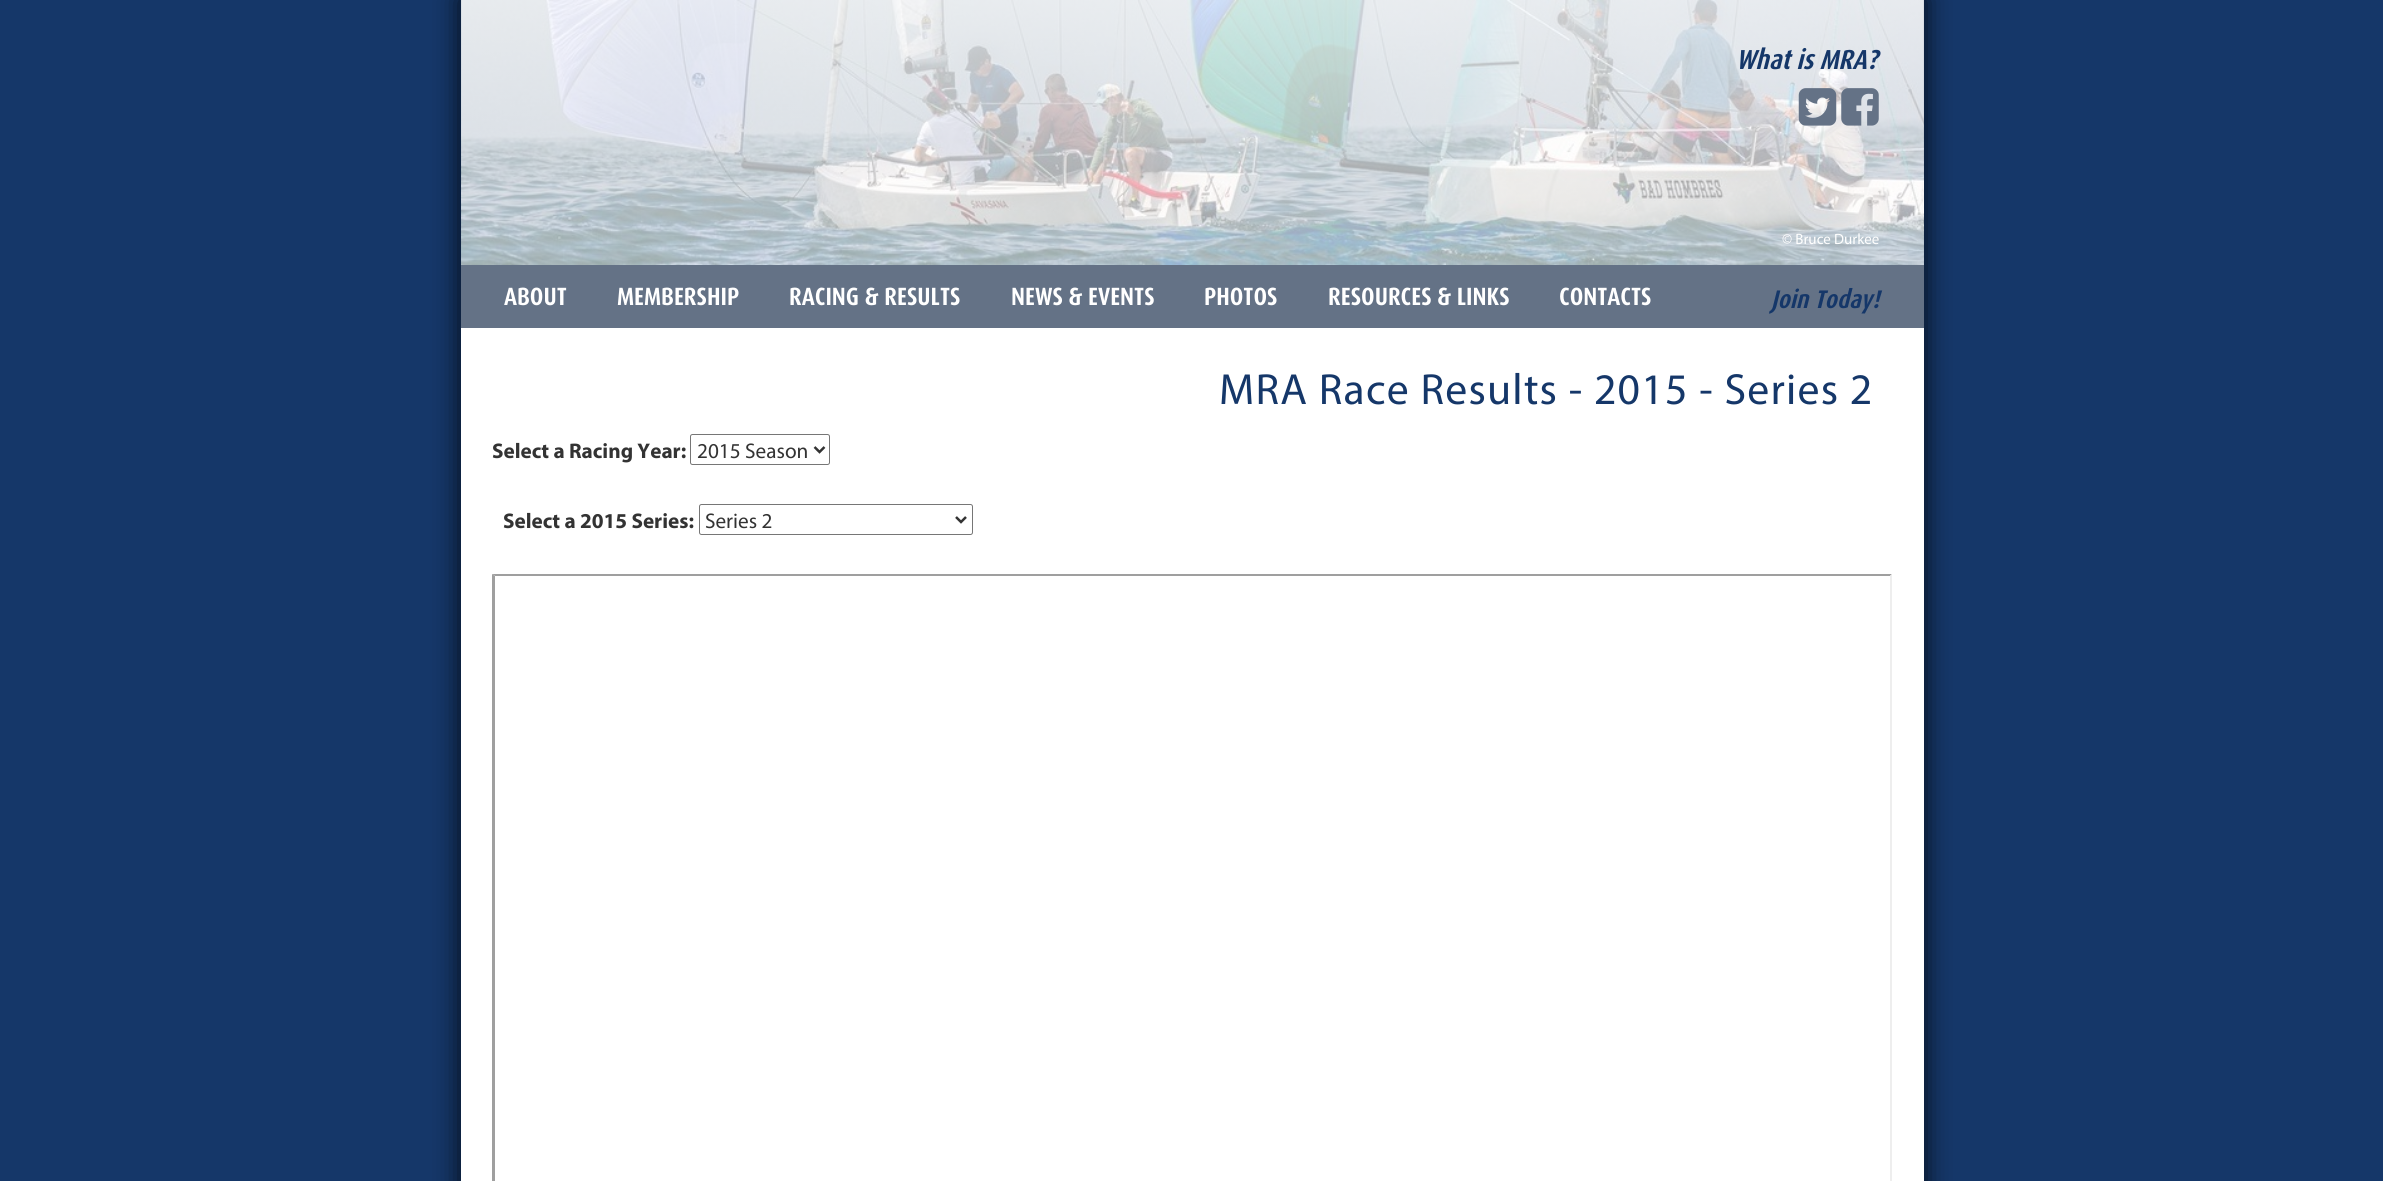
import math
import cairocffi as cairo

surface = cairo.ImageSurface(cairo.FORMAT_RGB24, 2383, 1181)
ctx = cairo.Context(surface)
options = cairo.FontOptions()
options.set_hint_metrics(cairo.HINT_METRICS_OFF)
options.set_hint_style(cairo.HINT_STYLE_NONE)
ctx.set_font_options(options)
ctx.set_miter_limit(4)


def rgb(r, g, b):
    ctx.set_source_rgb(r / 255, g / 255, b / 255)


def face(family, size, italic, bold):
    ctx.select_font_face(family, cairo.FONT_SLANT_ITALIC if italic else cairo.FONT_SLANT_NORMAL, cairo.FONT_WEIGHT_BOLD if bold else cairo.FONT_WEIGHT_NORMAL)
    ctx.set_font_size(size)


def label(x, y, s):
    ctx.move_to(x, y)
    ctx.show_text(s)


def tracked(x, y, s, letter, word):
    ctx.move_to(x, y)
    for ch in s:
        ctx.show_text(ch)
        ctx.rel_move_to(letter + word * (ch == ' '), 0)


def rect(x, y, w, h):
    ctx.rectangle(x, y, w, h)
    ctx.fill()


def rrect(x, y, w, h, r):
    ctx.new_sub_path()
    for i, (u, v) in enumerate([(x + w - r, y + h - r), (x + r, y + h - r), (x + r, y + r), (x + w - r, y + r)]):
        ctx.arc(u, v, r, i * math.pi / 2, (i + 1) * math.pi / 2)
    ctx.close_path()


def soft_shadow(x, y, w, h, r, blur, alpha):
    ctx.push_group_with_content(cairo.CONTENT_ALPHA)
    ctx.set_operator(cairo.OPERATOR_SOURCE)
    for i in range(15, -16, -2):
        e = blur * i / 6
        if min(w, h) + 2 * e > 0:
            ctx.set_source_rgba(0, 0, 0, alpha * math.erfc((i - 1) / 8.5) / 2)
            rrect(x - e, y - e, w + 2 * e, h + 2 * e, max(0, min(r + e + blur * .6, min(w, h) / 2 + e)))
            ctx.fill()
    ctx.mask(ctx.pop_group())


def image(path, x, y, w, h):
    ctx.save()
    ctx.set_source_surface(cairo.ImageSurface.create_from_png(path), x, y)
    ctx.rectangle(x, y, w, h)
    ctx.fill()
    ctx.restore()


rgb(21, 55, 105)
ctx.paint()
rgb(0, 0, 0)
soft_shadow(459, -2, 1467, 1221, 0, 12.5, 0.75)
rgb(255, 255, 255)
rect(461, 0, 1463, 1181)
image('image0.png', 461, 0, 1463, 265)
face('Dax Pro', 27.5, 1, 1)
rgb(21, 55, 105)
label(1736, 69, 'What is MRA?')
image('image1.png', 1798, 88, 39, 38)
image('image2.png', 1841, 88, 38, 38)
face('Myriad', 15, 0, 0)
rgb(255, 255, 255)
label(1782, 244, '© Bruce Durkee')
rgb(100, 114, 134)
rect(461, 265, 1463, 63)
face('Dax Pro', 25, 0, 1)
rgb(255, 255, 255)
label(504, 305, 'ABOUT')
label(617, 305, 'MEMBERSHIP')
label(789, 305, 'RACING & RESULTS')
label(1011, 305, 'NEWS & EVENTS')
label(1204, 305, 'PHOTOS')
label(1328, 305, 'RESOURCES & LINKS')
label(1559, 305, 'CONTACTS')
face('Dax Pro', 25.5, 1, 1)
rgb(21, 55, 105)
label(1771, 308, 'Join Today!')
face('Myriad', 43.75, 0, 0)
tracked(1219, 404, 'MRA Race Results - 2015 - Series 2', 1.25, 0)
face('Myriad', 21.25, 0, 1)
rgb(51, 51, 51)
label(492, 458, 'Select a Racing Year:')
rrect(690.5, 434.5, 139, 30, 2)
rgb(118, 118, 118)
ctx.set_line_width(1)
ctx.stroke()
ctx.new_path()
ctx.move_to(814.5, 447)
ctx.line_to(819.5, 452)
ctx.line_to(824.5, 447)
rgb(51, 51, 51)
ctx.set_line_width(2.5)
ctx.stroke()
face('Myriad', 21.25, 0, 0)
label(697, 458, '2015 Season')
face('Myriad', 21.25, 0, 1)
label(503, 528, 'Select a 2015 Series:')
rrect(699.5, 504.5, 273, 30, 2)
rgb(118, 118, 118)
ctx.set_line_width(1)
ctx.stroke()
ctx.new_path()
ctx.move_to(956, 517)
ctx.line_to(961, 522)
ctx.line_to(966, 517)
rgb(51, 51, 51)
ctx.set_line_width(2.5)
ctx.stroke()
face('Myriad', 21.25, 0, 0)
label(705, 528, 'Series 2')
rgb(159, 159, 159)
ctx.new_path()
ctx.move_to(492, 574)
ctx.line_to(1892, 574)
ctx.line_to(1890, 576)
ctx.line_to(495, 576)
ctx.close_path()
ctx.fill()
ctx.new_path()
ctx.move_to(492, 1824)
ctx.line_to(492, 574)
ctx.line_to(495, 576)
ctx.line_to(495, 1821)
ctx.close_path()
ctx.fill()
rgb(238, 238, 238)
ctx.new_path()
ctx.move_to(1892, 574)
ctx.line_to(1892, 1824)
ctx.line_to(1890, 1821)
ctx.line_to(1890, 576)
ctx.close_path()
ctx.fill()
surface.write_to_png('render.png')
